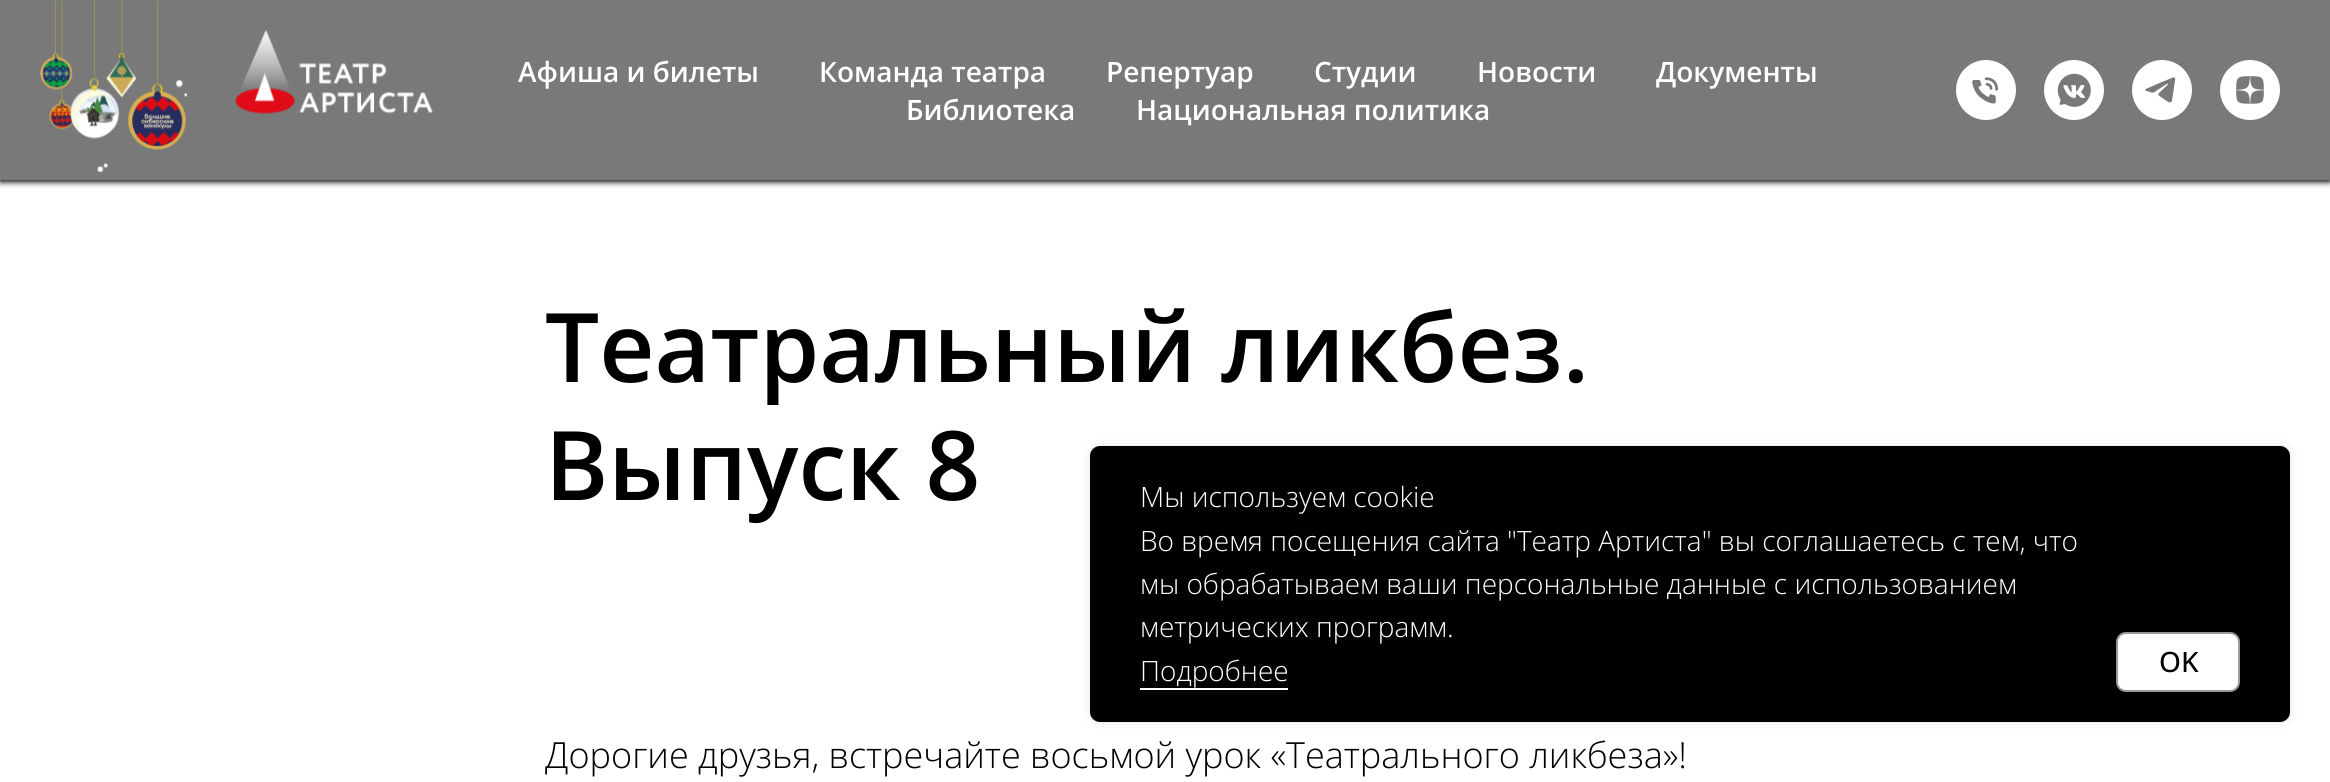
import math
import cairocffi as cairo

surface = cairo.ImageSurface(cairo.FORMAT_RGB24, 2330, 782)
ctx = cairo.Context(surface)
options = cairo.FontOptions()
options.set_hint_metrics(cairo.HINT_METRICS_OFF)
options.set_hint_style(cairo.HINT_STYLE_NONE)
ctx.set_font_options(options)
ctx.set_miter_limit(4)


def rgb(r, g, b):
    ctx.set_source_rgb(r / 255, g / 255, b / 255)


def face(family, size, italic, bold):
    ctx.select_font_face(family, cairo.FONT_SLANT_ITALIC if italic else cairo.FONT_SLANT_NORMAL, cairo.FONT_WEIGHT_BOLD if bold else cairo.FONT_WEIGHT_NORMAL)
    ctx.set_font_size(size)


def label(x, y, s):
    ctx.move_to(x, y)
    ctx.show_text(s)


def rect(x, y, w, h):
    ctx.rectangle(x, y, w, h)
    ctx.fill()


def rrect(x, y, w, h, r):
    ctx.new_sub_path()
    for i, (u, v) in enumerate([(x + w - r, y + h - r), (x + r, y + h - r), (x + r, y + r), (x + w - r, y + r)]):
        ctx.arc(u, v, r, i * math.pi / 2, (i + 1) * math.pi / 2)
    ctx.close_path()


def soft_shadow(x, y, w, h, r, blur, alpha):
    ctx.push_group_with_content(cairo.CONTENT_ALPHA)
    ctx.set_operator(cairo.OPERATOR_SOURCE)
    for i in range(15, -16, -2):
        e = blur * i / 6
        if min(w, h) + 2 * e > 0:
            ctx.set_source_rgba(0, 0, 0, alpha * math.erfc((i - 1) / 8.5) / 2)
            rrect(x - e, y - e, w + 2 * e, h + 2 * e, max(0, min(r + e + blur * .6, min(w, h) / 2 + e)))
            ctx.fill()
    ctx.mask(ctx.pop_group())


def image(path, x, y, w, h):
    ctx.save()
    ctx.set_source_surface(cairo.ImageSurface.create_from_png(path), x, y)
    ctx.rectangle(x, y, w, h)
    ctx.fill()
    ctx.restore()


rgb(255, 255, 255)
ctx.paint()
rgb(0, 0, 0)
soft_shadow(0, 2, 2330, 180, 0, 3, 1)
rgb(121, 121, 121)
rect(0, 0, 2330, 180)
image('image0.png', 40, 0, 393, 172)
face('Open Sans SemiBold', 28, 0, 0)
rgb(255, 255, 255)
label(518, 82, 'Афиша и билеты')
label(819, 82, 'Команда театра')
label(1106, 82, 'Репертуар')
label(1314, 82, 'Студии')
label(1477, 82, 'Новости')
label(1656, 82, 'Документы')
label(906, 120, 'Библиотека')
label(1136, 120, 'Национальная политика')
image('image1.png', 1956, 60, 60, 60)
image('image2.png', 2044, 60, 60, 60)
image('image3.png', 2132, 60, 60, 60)
image('image4.png', 2220, 60, 60, 60)
rgb(0, 0, 0)
soft_shadow(1090, 446, 1200, 276, 10, 5, 0.1)
rgb(3, 0, 0)
rrect(1090, 446, 1200, 276, 10)
ctx.fill()
face('Open Sans Light', 28, 0, 0)
rgb(255, 255, 255)
label(1140, 507, 'Мы используем cookie')
label(1140, 551, 'Во время посещения сайта "Театр Артиста" вы соглашаетесь с тем, что')
label(1140, 594, 'мы обрабатываем ваши персональные данные с использованием')
label(1140, 637, 'метрических программ.')
label(1140, 681, 'Подробнее')
rect(1140, 688, 148, 2)
rrect(2117, 633, 122, 58, 9)
ctx.fill_preserve()
rgb(153, 153, 153)
ctx.stroke()
face('Open Sans Medium', 28, 0, 0)
rgb(0, 0, 0)
label(2159, 672, 'OK')
face('Open Sans SemiBold', 96, 0, 0)
label(545, 382, 'Театральный ликбез.')
label(545, 500, 'Выпуск 8')
face('Open Sans Light', 36, 0, 0)
label(545, 768, 'Дорогие друзья, встречайте восьмой урок «Театрального ликбеза»!')
surface.write_to_png('render.png')
